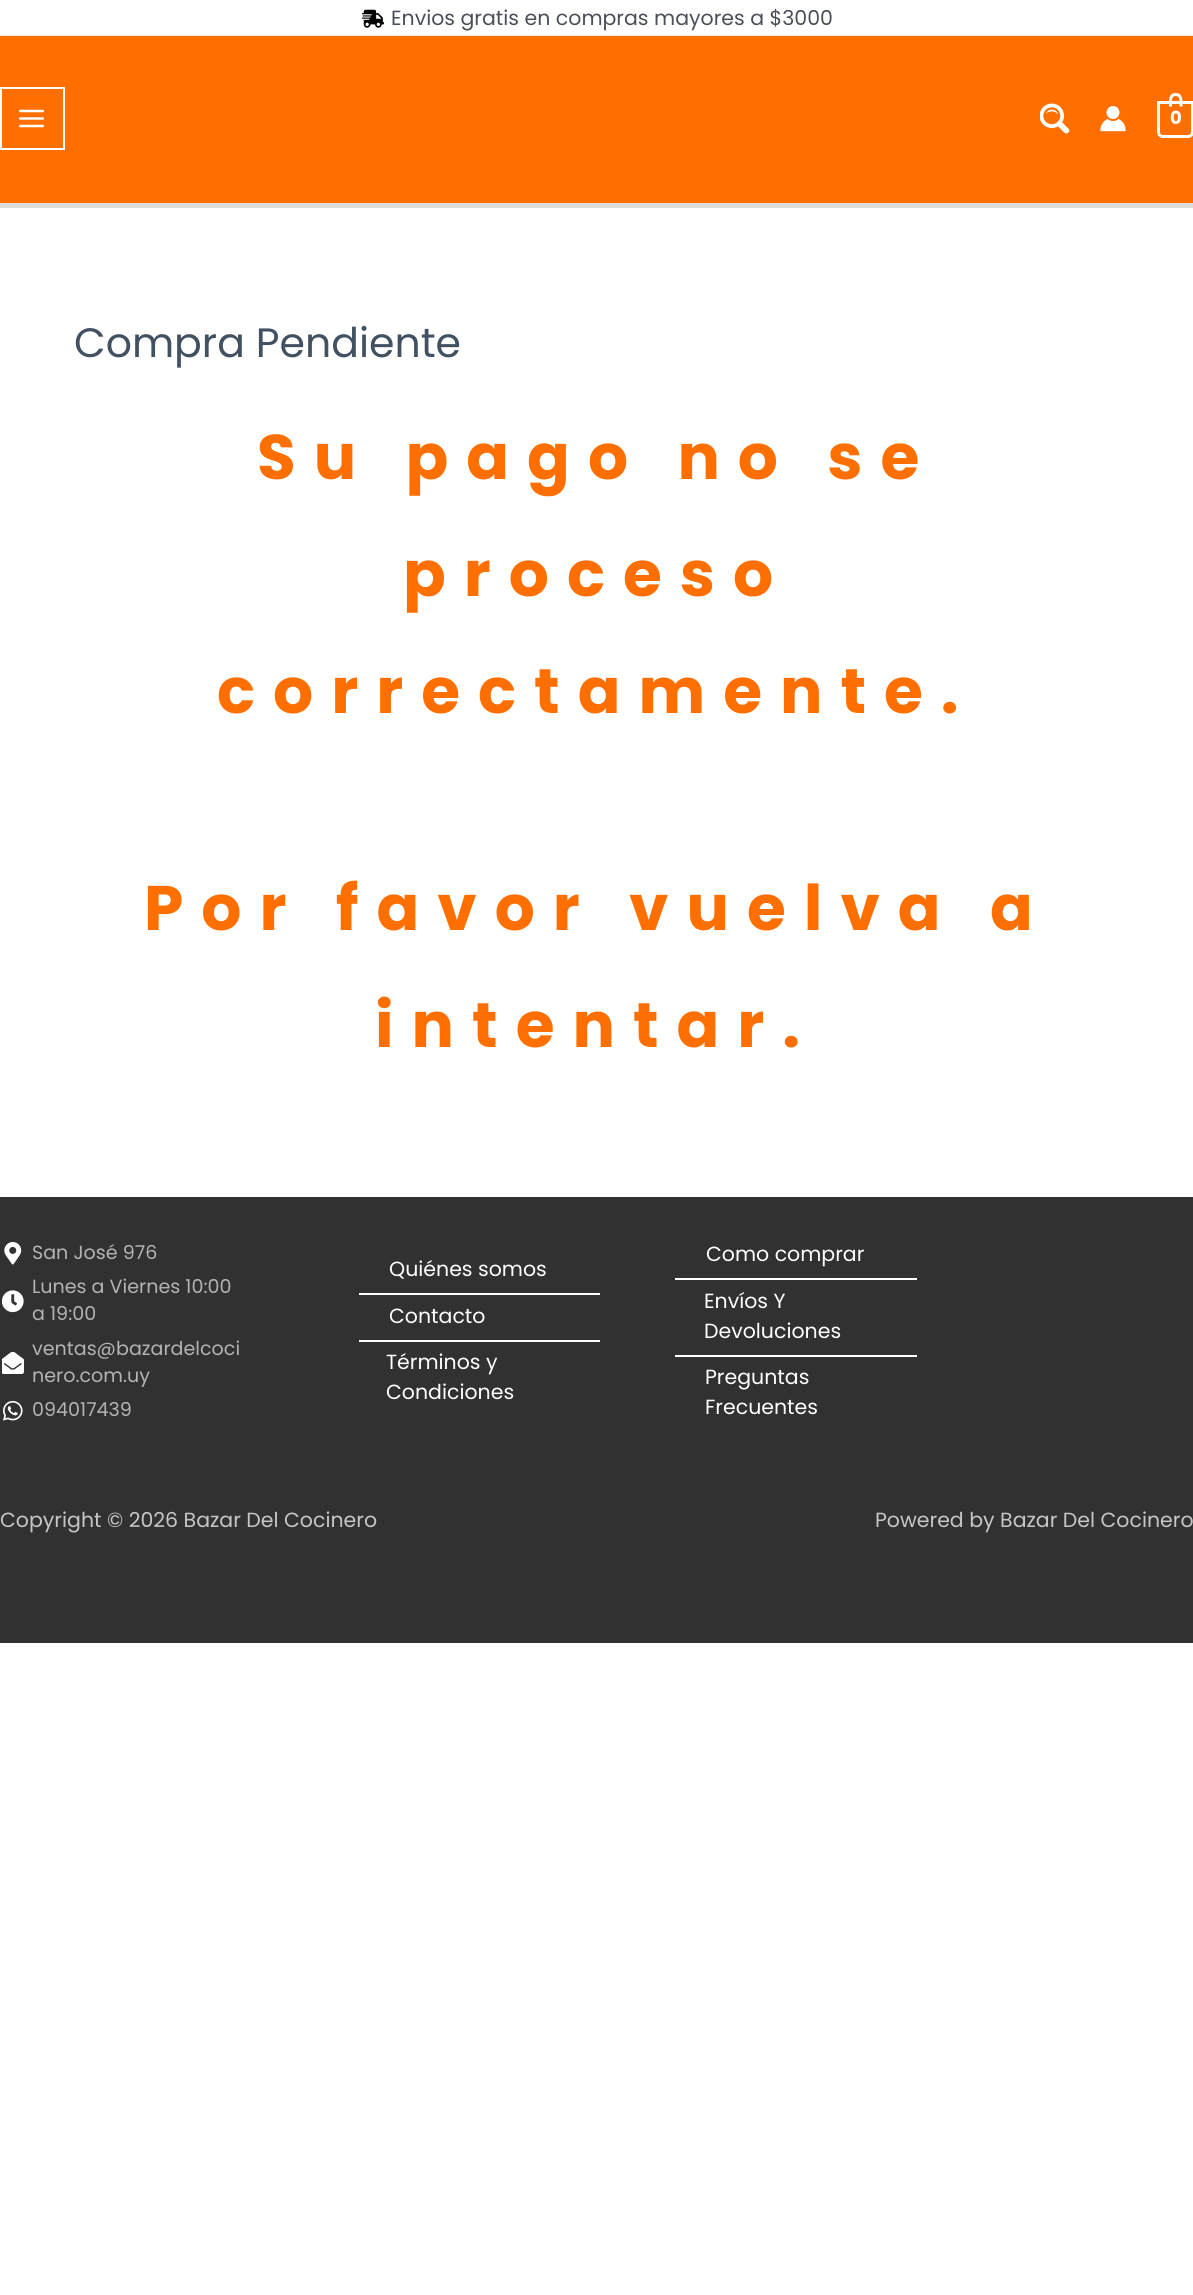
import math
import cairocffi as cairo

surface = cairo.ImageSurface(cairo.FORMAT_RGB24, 1193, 2295)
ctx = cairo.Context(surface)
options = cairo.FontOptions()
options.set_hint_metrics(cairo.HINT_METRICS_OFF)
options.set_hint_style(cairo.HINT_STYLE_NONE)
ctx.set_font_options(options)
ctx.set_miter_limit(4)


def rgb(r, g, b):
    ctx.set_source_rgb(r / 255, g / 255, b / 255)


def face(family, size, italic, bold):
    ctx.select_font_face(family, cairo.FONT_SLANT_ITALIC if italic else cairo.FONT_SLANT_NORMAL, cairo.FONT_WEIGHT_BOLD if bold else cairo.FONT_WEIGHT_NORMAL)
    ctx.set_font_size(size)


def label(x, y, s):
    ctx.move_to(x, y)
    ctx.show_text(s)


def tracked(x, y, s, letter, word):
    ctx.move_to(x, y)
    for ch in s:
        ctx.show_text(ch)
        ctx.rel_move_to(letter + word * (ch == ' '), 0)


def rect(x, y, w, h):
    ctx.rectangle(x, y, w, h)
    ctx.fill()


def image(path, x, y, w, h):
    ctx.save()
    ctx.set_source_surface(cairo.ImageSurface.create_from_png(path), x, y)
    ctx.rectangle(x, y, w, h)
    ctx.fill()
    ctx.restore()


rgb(255, 255, 255)
ctx.paint()
rgb(234, 234, 234)
rect(0, 35, 1193, 1)
image('image0.png', 362, 9, 22, 19)
face('Poppins', 20.5, 0, 0)
rgb(75, 79, 88)
label(391, 25, 'Envios gratis en compras mayores a $3000')
rgb(255, 111, 0)
rect(0, 36, 1193, 167)
rgb(221, 221, 221)
rect(0, 203, 1193, 5)
ctx.rectangle(1, 88, 63, 61)
rgb(255, 255, 255)
ctx.stroke()
image('image1.png', 19, 109, 25, 19)
image('image2.png', 1040, 103, 30, 31)
image('image3.png', 1100, 106, 26, 26)
ctx.new_path()
ctx.move_to(1158.5, 102.5)
ctx.line_to(1192.5, 102.5)
ctx.line_to(1192.5, 132)
ctx.curve_to(1192.5, 134.5, 1190.5, 136.5, 1188, 136.5)
ctx.line_to(1163, 136.5)
ctx.curve_to(1160.5, 136.5, 1158.5, 134.5, 1158.5, 132)
ctx.close_path()
ctx.set_line_width(3)
ctx.stroke()
ctx.set_fill_rule(cairo.FILL_RULE_EVEN_ODD)
ctx.new_path()
ctx.move_to(1175.5, 93)
ctx.curve_to(1183.5, 93, 1182.5, 101.5, 1182.5, 106.5)
ctx.line_to(1169, 106.5)
ctx.curve_to(1169, 101.5, 1168, 93, 1175.5, 93)
ctx.close_path()
ctx.move_to(1175.5, 96)
ctx.curve_to(1181, 96, 1179.5, 103.5, 1179.5, 106.5)
ctx.line_to(1172, 106.5)
ctx.curve_to(1172, 103.5, 1170.5, 96, 1175.5, 96)
ctx.close_path()
ctx.fill()
face('Poppins', 18, 0, 1)
label(1170, 124, '0')
face('Poppins', 41, 0, 0)
rgb(65, 81, 97)
label(74, 357, 'Compra Pendiente')
face('Poppins', 63, 0, 1)
rgb(255, 111, 0)
tracked(257, 479, 'Su pago no se', 18, 0)
tracked(403, 596, 'proceso', 18, 0)
tracked(217, 713, 'correctamente.', 18, 0)
tracked(144, 930, 'Por favor vuelva a', 18, 0)
tracked(375, 1047, 'intentar.', 18, 0)
rgb(49, 49, 49)
rect(0, 1197, 1193, 446)
image('image4.png', 4, 1242, 18, 23)
face('Poppins', 19.1, 0, 0)
rgb(179, 179, 179)
label(32, 1259, 'San José 976')
image('image5.png', 2, 1290, 22, 23)
label(32, 1293, 'Lunes a Viernes 10:00')
label(32, 1320, 'a 19:00')
image('image6.png', 2, 1352, 22, 22)
label(32, 1355, 'ventas@bazardelcoci')
label(32, 1382, 'nero.com.uy')
image('image7.png', 3, 1400, 20, 21)
label(32, 1416, '094017439')
rgb(255, 255, 255)
rect(359, 1293, 241, 2)
face('Poppins', 20.5, 0, 0)
label(389, 1276, 'Quiénes somos')
rect(359, 1340, 241, 2)
label(389, 1323, 'Contacto')
label(386, 1369, 'Términos y')
label(386, 1399, 'Condiciones')
rect(675, 1278, 242, 2)
label(706, 1261, 'Como comprar')
rect(675, 1355, 242, 2)
label(704, 1308, 'Envíos Y')
label(704, 1338, 'Devoluciones')
label(705, 1384, 'Preguntas')
label(705, 1414, 'Frecuentes')
rgb(198, 198, 198)
label(0, 1527, 'Copyright © 2026 Bazar Del Cocinero')
label(875, 1527, 'Powered by Bazar Del Cocinero')
surface.write_to_png('render.png')
